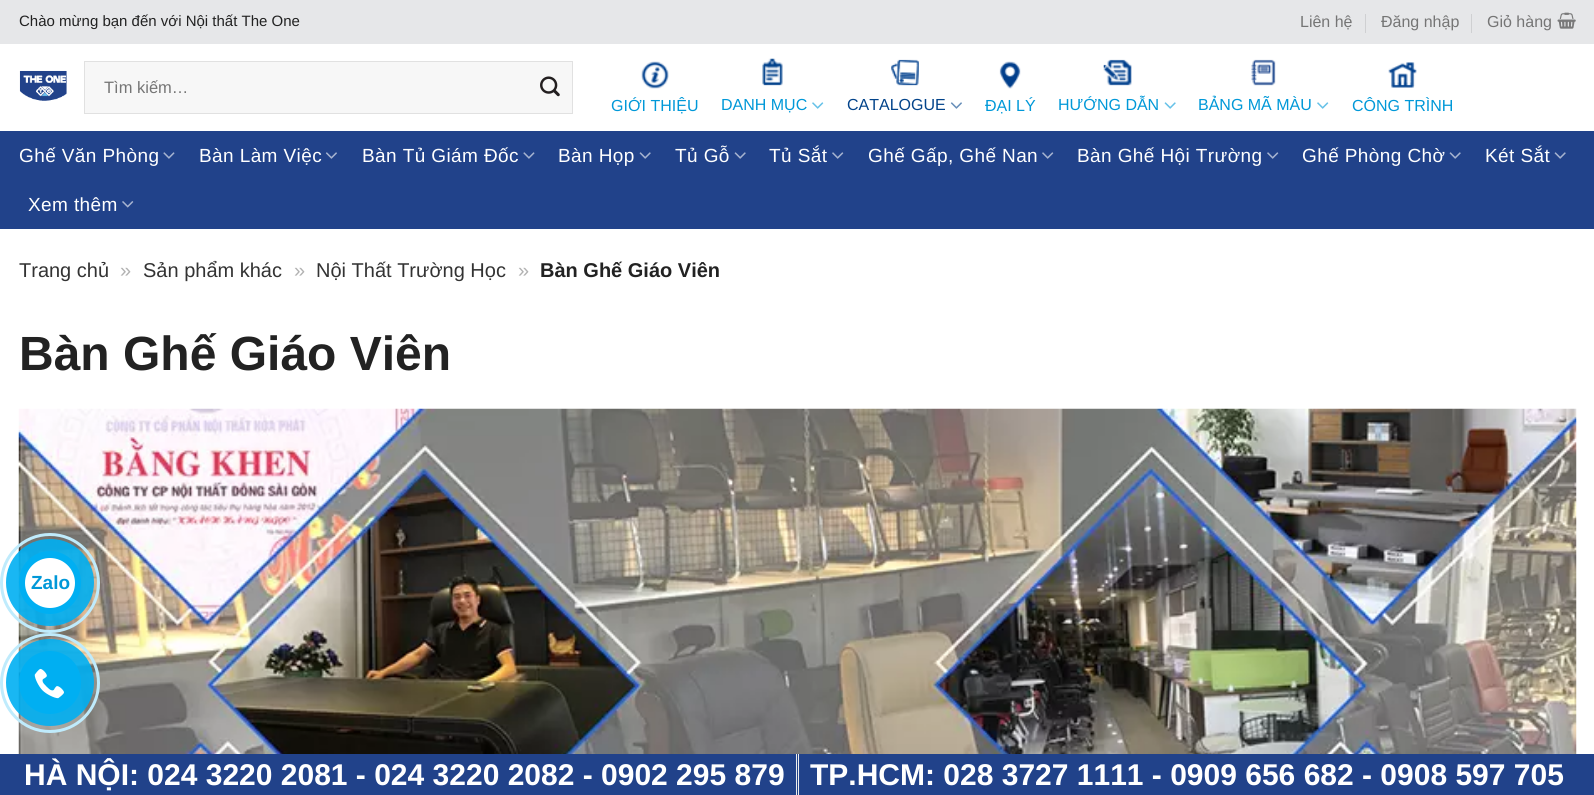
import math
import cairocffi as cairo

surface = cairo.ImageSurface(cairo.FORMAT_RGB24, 1594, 795)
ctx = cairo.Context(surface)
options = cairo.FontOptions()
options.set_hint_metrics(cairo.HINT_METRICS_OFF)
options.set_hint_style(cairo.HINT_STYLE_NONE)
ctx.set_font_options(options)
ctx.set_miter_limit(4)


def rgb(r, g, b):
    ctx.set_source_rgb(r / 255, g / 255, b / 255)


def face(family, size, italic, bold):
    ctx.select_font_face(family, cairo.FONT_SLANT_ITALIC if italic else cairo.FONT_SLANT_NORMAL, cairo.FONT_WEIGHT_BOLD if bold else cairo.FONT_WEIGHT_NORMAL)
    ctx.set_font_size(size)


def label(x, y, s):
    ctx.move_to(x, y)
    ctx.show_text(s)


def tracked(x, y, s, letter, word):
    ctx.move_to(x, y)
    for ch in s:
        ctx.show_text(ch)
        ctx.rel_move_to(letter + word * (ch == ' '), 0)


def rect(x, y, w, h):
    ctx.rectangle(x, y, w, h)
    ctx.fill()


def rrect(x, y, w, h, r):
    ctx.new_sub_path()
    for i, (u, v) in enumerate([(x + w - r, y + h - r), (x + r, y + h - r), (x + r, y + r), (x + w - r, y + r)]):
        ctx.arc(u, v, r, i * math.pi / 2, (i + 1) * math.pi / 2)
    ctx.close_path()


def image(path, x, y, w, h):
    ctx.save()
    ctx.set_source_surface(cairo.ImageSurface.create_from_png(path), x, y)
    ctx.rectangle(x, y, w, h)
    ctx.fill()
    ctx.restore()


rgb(255, 255, 255)
ctx.paint()
rgb(230, 231, 233)
rect(0, 0, 1594, 44)
face('Liberation Sans', 15, 0, 0)
rgb(34, 34, 34)
label(19, 26, 'Chào mừng bạn đến với Nội thất The One')
face('Liberation Sans', 16, 0, 0)
rgb(117, 117, 117)
label(1300, 27, 'Liên hệ')
rgb(207, 208, 210)
rect(1365, 14, 1, 19)
rgb(117, 117, 117)
label(1381, 27, 'Đăng nhập')
rgb(207, 208, 210)
rect(1471, 14, 1, 19)
rgb(117, 117, 117)
label(1487, 27, 'Giỏ hàng')
image('image0.png', 1557, 12, 19, 17)
image('image1.png', 19, 70, 48, 31)
rgb(247, 247, 247)
ctx.rectangle(84.5, 61.5, 488, 52)
ctx.fill_preserve()
rgb(225, 225, 225)
ctx.set_line_width(1)
ctx.stroke()
face('Liberation Sans', 16.5, 0, 0)
rgb(117, 117, 117)
label(104, 93, 'Tìm kiếm…')
image('image2.png', 540, 76, 20, 21)
image('image3.png', 641, 61, 28, 28)
face('Liberation Sans', 16, 0, 0)
rgb(0, 152, 216)
label(611, 111, 'GIỚI THIỆU')
image('image4.png', 762, 58, 21, 28)
label(721, 110, 'DANH MỤC')
image('image5.png', 812, 102, 12, 7)
image('image6.png', 891, 59, 28, 27)
rgb(2, 67, 138)
label(847, 110, 'CATALOGUE')
image('image7.png', 950, 102, 12, 7)
image('image8.png', 999, 61, 22, 28)
rgb(0, 152, 216)
label(985, 111, 'ĐẠI LÝ')
image('image9.png', 1103, 59, 29, 27)
label(1058, 110, 'HƯỚNG DẪN')
image('image10.png', 1164, 102, 12, 7)
image('image11.png', 1251, 59, 25, 27)
label(1198, 110, 'BẢNG MÃ MÀU')
image('image5.png', 1317, 102, 12, 7)
image('image12.png', 1388, 62, 29, 26)
label(1352, 111, 'CÔNG TRÌNH')
rgb(33, 66, 138)
rect(0, 131, 1594, 98)
face('Liberation Sans', 19, 0, 0)
rgb(255, 255, 255)
tracked(19, 162, 'Ghế Văn Phòng', 0.4, 0)
image('image13.png', 163, 152, 12, 7)
tracked(199, 162, 'Bàn Làm Việc', 0.4, 0)
image('image14.png', 325, 152, 12, 7)
tracked(362, 162, 'Bàn Tủ Giám Đốc', 0.4, 0)
image('image13.png', 523, 152, 12, 7)
tracked(558, 162, 'Bàn Họp', 0.4, 0)
image('image15.png', 639, 152, 12, 7)
tracked(675, 162, 'Tủ Gỗ', 0.4, 0)
image('image15.png', 734, 152, 12, 7)
tracked(769, 162, 'Tủ Sắt', 0.4, 0)
image('image16.png', 832, 152, 12, 7)
tracked(868, 162, 'Ghế Gấp, Ghế Nan', 0.4, 0)
image('image16.png', 1042, 152, 12, 7)
tracked(1077, 162, 'Bàn Ghế Hội Trường', 0.4, 0)
image('image16.png', 1267, 152, 12, 7)
tracked(1302, 162, 'Ghế Phòng Chờ', 0.4, 0)
image('image15.png', 1449, 152, 12, 7)
tracked(1485, 162, 'Két Sắt', 0.4, 0)
image('image15.png', 1554, 152, 12, 7)
tracked(28, 211, 'Xem thêm', 0.4, 0)
image('image17.png', 122, 201, 12, 7)
face('Liberation Sans', 20, 0, 0)
rgb(51, 51, 51)
label(19, 277, 'Trang chủ')
rgb(178, 178, 178)
label(120, 277, '»')
rgb(51, 51, 51)
label(143, 277, 'Sản phẩm khác')
rgb(178, 178, 178)
label(294, 277, '»')
rgb(51, 51, 51)
label(316, 277, 'Nội Thất Trường Học')
rgb(178, 178, 178)
label(518, 277, '»')
face('Liberation Sans', 20, 0, 1)
rgb(34, 34, 34)
label(540, 277, 'Bàn Ghế Giáo Viên')
face('Liberation Sans', 48, 0, 1)
label(19, 370, 'Bàn Ghế Giáo Viên')
image('image18.png', 18, 408, 1559, 346)
ctx.arc(50, 583, 48.5, 0, 2 * math.pi)
rgb(191, 235, 252)
ctx.set_line_width(3)
ctx.stroke()
ctx.set_source_rgba(0, 0.686, 0.949, 0.9)
rrect(6, 539, 88, 87, 43.5)
ctx.fill()
rgb(0, 175, 242)
rrect(19, 551, 62, 63, 31)
ctx.fill()
rgb(255, 255, 255)
ctx.arc(50, 583, 25, 0, 2 * math.pi)
ctx.fill()
face('Liberation Sans', 19, 0, 1)
rgb(0, 152, 216)
label(31, 589, 'Zalo')
ctx.new_path()
ctx.arc(50, 683, 48.5, 0, 2 * math.pi)
rgb(191, 235, 252)
ctx.stroke()
ctx.set_source_rgba(0, 0.686, 0.949, 0.9)
rrect(6, 639, 88, 87, 43.5)
ctx.fill()
rgb(0, 175, 242)
rrect(19, 651, 62, 63, 31)
ctx.fill()
image('image19.png', 34, 668, 30, 31)
rgb(33, 66, 138)
rect(0, 754, 1594, 41)
face('Liberation Sans', 30, 0, 1)
rgb(255, 255, 255)
label(24, 785, 'HÀ NỘI: 024 3220 2081 - 024 3220 2082 - 0902 295 879')
rgb(236, 236, 236)
rect(796, 754, 1, 41)
rect(798, 754, 1, 41)
rgb(255, 255, 255)
label(810, 785, 'TP.HCM: 028 3727 1111 - 0909 656 682 - 0908 597 705')
surface.write_to_png('render.png')
